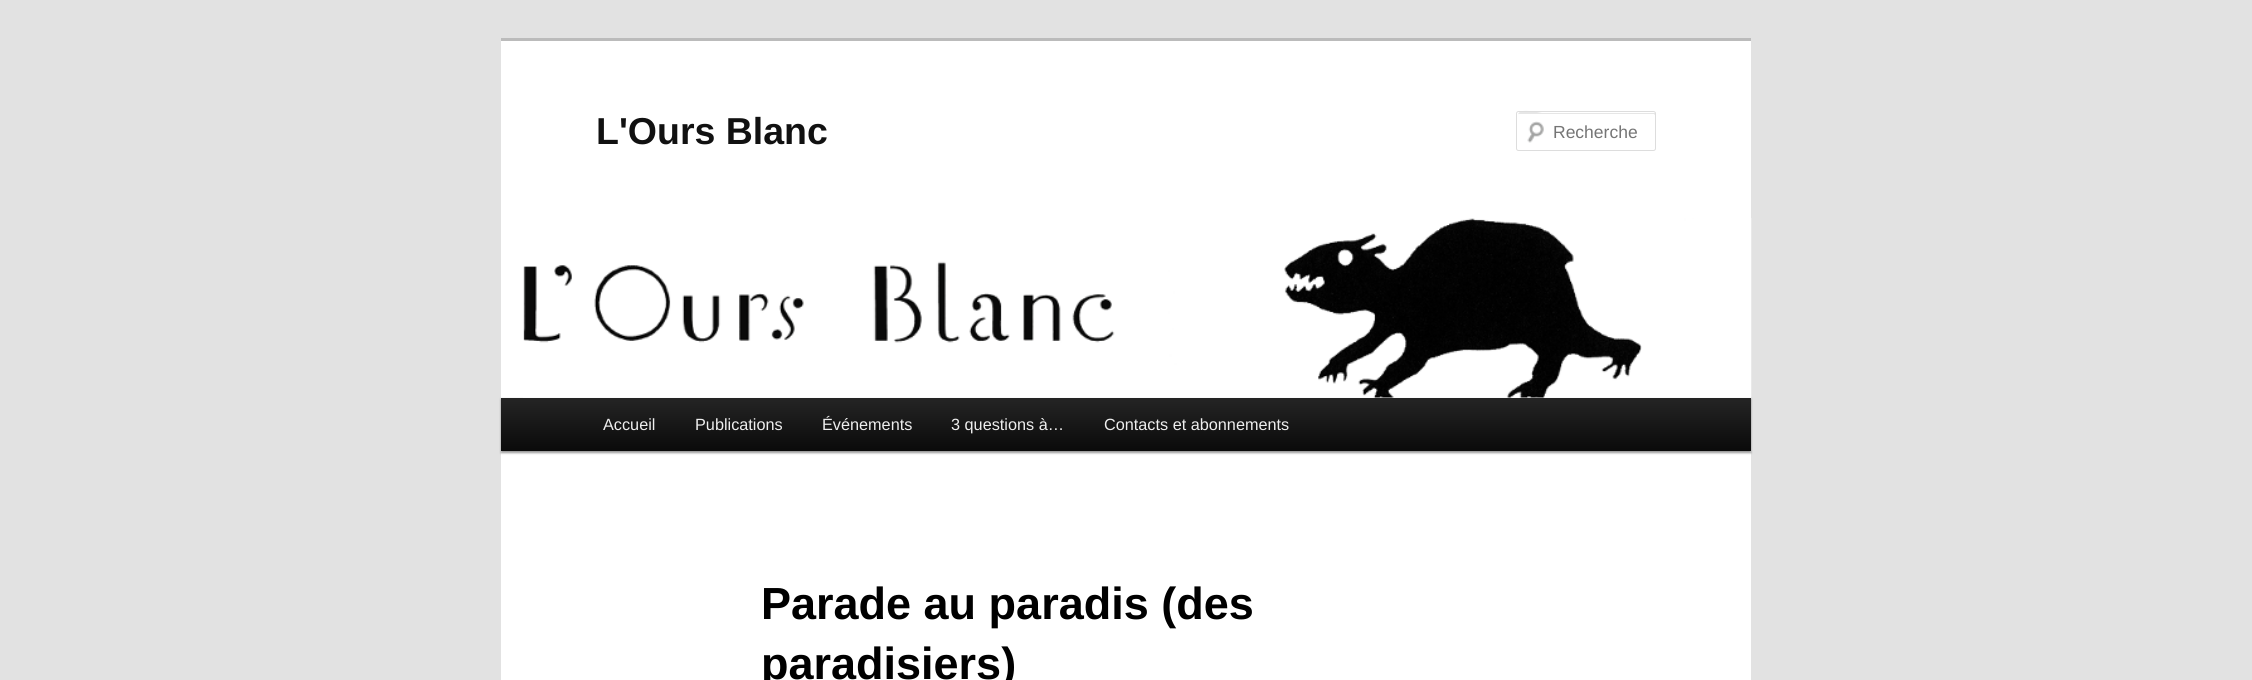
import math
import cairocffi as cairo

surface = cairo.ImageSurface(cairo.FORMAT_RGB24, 2252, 680)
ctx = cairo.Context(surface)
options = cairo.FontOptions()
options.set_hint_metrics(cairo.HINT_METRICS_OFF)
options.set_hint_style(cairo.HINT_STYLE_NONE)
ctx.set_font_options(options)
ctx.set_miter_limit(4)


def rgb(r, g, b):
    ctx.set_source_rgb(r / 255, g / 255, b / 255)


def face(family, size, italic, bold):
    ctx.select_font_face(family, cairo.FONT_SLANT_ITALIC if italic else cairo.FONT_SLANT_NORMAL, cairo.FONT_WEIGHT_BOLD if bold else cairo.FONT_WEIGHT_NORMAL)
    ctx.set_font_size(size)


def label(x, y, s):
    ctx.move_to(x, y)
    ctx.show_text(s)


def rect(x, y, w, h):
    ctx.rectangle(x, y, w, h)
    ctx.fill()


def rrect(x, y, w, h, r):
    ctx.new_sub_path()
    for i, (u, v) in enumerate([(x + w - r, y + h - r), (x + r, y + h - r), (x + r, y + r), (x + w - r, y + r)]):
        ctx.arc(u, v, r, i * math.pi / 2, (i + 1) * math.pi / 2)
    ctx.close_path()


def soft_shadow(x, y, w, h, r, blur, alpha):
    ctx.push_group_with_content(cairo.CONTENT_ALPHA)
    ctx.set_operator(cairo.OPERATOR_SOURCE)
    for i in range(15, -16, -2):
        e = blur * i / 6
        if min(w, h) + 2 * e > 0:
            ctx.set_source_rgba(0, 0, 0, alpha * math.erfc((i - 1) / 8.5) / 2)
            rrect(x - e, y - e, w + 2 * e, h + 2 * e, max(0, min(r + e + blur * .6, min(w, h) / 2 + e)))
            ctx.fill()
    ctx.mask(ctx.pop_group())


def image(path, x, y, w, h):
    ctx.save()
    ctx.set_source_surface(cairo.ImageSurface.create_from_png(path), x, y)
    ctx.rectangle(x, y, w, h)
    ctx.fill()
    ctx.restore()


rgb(226, 226, 226)
ctx.paint()
rgb(255, 255, 255)
rect(501, 41, 1250, 639)
rgb(187, 187, 187)
rect(501, 38, 1250, 3)
face('Liberation Sans', 37.5, 0, 1)
rgb(17, 17, 17)
label(596, 144, 'L\'Ours Blanc')
image('image0.png', 1527, 121, 17, 22)
rgb(230, 230, 230)
ctx.new_path()
ctx.move_to(1519, 114)
ctx.line_to(1654, 114)
ctx.line_to(1655, 115)
ctx.line_to(1655, 113)
ctx.line_to(1542, 113)
ctx.curve_to(1541, 113, 1518, 107, 1518, 115)
ctx.curve_to(1518, 114, 1518, 114, 1519, 114)
ctx.close_path()
ctx.fill()
rrect(1516.5, 111.5, 139, 39, 2)
rgb(221, 221, 221)
ctx.set_line_width(1)
ctx.stroke()
face('Liberation Sans', 17.5, 0, 0)
rgb(117, 117, 117)
label(1553, 138, 'Recherche')
rgb(0, 0, 0)
soft_shadow(501, 399, 1250, 54, 0, 1, 0.4)
image('image1.png', 523, 218, 1229, 180)
gradient = cairo.LinearGradient(1126, 397, 1126, 451)
gradient.add_color_stop_rgba(0, 0.145, 0.145, 0.145, 1)
gradient.add_color_stop_rgba(1, 0.039, 0.039, 0.039, 1)
ctx.set_source(gradient)
rect(501, 398, 1250, 53)
face('Liberation Sans', 16.25, 0, 0)
rgb(238, 238, 238)
label(603, 430, 'Accueil')
label(695, 430, 'Publications')
label(822, 430, 'Événements')
label(951, 430, '3 questions à…')
label(1104, 430, 'Contacts et abonnements')
face('Liberation Sans', 45, 0, 1)
rgb(0, 0, 0)
label(761, 619, 'Parade au paradis (des')
label(761, 679, 'paradisiers)')
surface.write_to_png('render.png')
